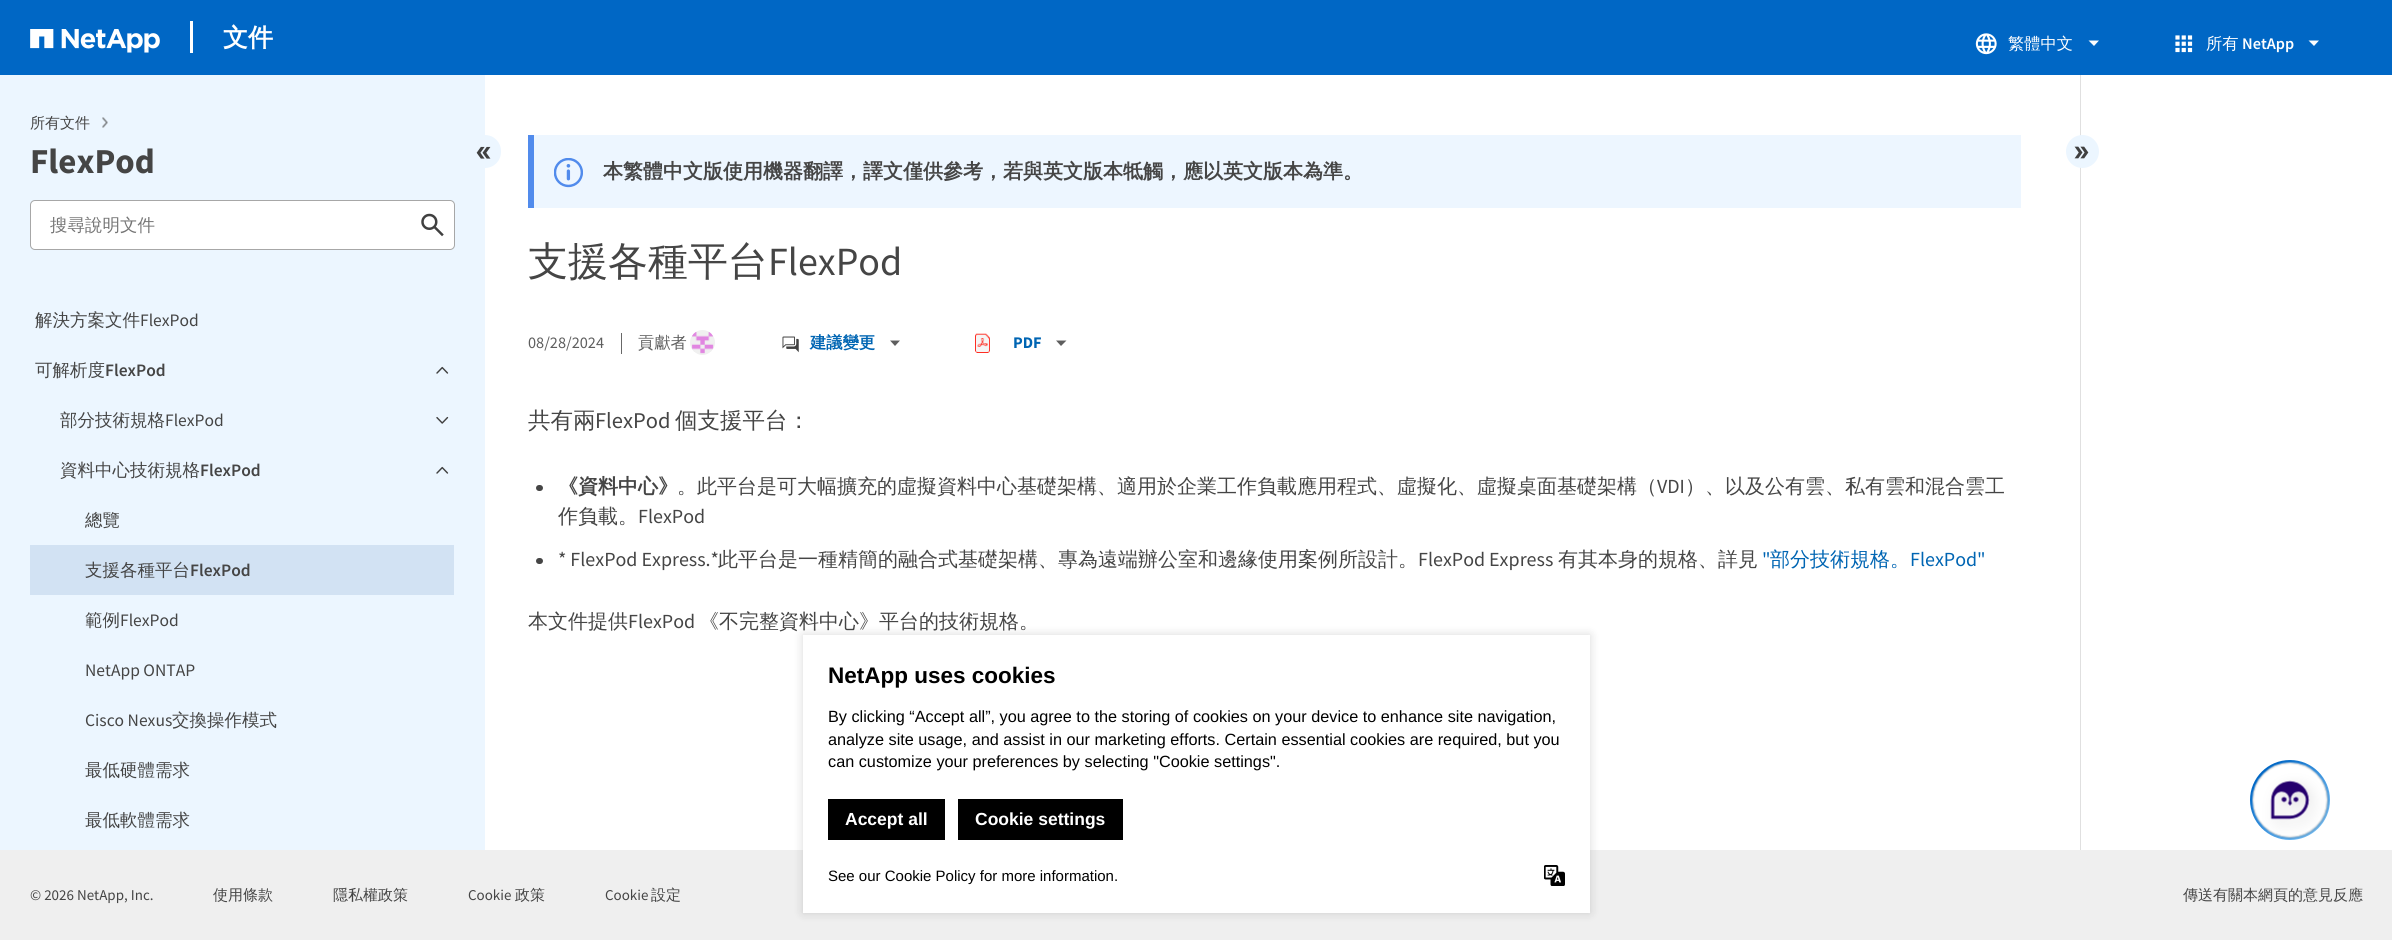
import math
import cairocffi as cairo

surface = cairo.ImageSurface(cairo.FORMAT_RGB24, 2392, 940)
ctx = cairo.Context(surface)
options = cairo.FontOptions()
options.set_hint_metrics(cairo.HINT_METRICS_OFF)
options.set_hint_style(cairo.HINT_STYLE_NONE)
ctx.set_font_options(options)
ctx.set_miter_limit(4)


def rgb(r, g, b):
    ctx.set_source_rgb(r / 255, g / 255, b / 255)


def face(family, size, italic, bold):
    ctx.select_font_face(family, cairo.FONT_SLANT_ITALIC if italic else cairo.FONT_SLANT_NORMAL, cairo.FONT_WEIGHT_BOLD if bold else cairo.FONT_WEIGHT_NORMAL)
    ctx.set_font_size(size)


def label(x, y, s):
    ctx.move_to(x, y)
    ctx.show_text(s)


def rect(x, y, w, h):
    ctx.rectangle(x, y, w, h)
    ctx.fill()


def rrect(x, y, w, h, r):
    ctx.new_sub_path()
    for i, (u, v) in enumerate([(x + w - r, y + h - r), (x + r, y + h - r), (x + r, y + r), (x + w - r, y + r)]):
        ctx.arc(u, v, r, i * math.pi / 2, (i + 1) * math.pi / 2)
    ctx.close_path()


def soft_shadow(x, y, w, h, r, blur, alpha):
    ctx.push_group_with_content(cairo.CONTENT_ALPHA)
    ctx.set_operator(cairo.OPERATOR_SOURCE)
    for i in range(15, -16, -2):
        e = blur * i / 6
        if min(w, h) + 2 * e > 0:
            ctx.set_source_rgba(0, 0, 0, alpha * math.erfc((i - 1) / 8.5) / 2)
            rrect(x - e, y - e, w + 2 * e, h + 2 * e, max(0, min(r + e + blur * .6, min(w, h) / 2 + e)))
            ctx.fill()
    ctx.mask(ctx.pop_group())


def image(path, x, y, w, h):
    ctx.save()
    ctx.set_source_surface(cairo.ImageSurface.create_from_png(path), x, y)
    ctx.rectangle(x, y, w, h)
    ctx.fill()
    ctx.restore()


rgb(255, 255, 255)
ctx.paint()
rgb(0, 103, 197)
rect(0, 0, 2392, 75)
image('image0.png', 30, 29, 130, 24)
rgb(255, 255, 255)
rect(190, 21, 3, 32)
face('WenQuanYi Zen Hei', 25, 0, 1)
label(223, 46, '文件')
image('image1.png', 1975, 33, 22, 22)
face('WenQuanYi Zen Hei Medium', 16.25, 0, 0)
label(2008, 49, '繁體中文')
rgb(253, 253, 253)
ctx.new_path()
ctx.move_to(2094, 46)
ctx.line_to(2088.5, 40.5)
ctx.line_to(2099, 40.5)
ctx.close_path()
ctx.fill()
image('image2.png', 2175, 35, 18, 18)
rgb(255, 255, 255)
label(2206, 49, '所有')
face('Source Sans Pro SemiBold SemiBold', 16.25, 0, 0)
label(2242, 49, 'NetApp')
rgb(253, 253, 253)
ctx.new_path()
ctx.move_to(2314, 46)
ctx.line_to(2308.5, 40.5)
ctx.line_to(2319, 40.5)
ctx.close_path()
ctx.fill()
rgb(236, 246, 255)
rect(0, 75, 485, 775)
face('WenQuanYi Zen Hei Medium', 15, 0, 0)
rgb(69, 69, 69)
label(30, 128, '所有文件')
image('image3.png', 102, 117, 6, 11)
face('Source Sans Pro', 35, 0, 1)
label(30, 173, 'FlexPod')
rgb(236, 246, 255)
rrect(469, 135, 32, 33, 16)
ctx.fill()
image('image4.png', 476, 146, 15, 13)
rgb(255, 255, 255)
rrect(30.5, 200.5, 424, 49, 4.5)
ctx.fill_preserve()
rgb(167, 167, 167)
ctx.set_line_width(1)
ctx.stroke()
face('WenQuanYi Zen Hei Medium', 17.5, 0, 0)
rgb(117, 117, 117)
label(50, 231, '搜尋說明文件')
image('image5.png', 421, 213, 23, 24)
rgb(69, 69, 69)
label(35, 326, '解決方案文件')
face('Source Sans Pro', 17.5, 0, 0)
label(140, 326, 'FlexPod')
face('WenQuanYi Zen Hei Medium', 17.5, 0, 0)
label(35, 376, '可解析度')
face('Source Sans Pro SemiBold SemiBold', 17.5, 0, 0)
label(105, 376, 'FlexPod')
image('image6.png', 436, 366, 13, 8)
face('WenQuanYi Zen Hei Medium', 17.5, 0, 0)
label(60, 426, '部分技術規格')
face('Source Sans Pro', 17.5, 0, 0)
label(165, 426, 'FlexPod')
image('image7.png', 436, 416, 13, 8)
face('WenQuanYi Zen Hei Medium', 17.5, 0, 0)
label(60, 476, '資料中心技術規格')
face('Source Sans Pro SemiBold SemiBold', 17.5, 0, 0)
label(200, 476, 'FlexPod')
image('image6.png', 436, 466, 13, 8)
face('WenQuanYi Zen Hei Medium', 17.5, 0, 0)
label(85, 526, '總覽')
rgb(210, 226, 243)
rect(30, 545, 424, 50)
rgb(69, 69, 69)
label(85, 576, '支援各種平台')
face('Source Sans Pro SemiBold SemiBold', 17.5, 0, 0)
label(190, 576, 'FlexPod')
face('WenQuanYi Zen Hei Medium', 17.5, 0, 0)
label(85, 626, '範例')
face('Source Sans Pro', 17.5, 0, 0)
label(120, 626, 'FlexPod')
label(85, 676, 'NetApp ONTAP')
label(85, 726, 'Cisco Nexus')
face('WenQuanYi Zen Hei Medium', 17.5, 0, 0)
label(172, 726, '交換操作模式')
label(85, 776, '最低硬體需求')
label(85, 826, '最低軟體需求')
rgb(237, 246, 255)
rect(534, 135, 1487, 73)
rgb(81, 139, 236)
rect(528, 135, 6, 73)
image('image8.png', 554, 158, 29, 30)
face('WenQuanYi Zen Hei', 20, 0, 1)
rgb(69, 69, 69)
label(603, 178, '本繁體中文版使用機器翻譯，譯文僅供參考，若與英文版本牴觸，應以英文版本為準。')
face('WenQuanYi Zen Hei Medium', 40, 0, 0)
label(528, 275, '支援各種平台')
face('Source Sans Pro', 40, 0, 0)
label(768, 275, 'FlexPod')
face('Source Sans Pro', 16.25, 0, 0)
rgb(94, 94, 94)
label(528, 348, '08/28/2024')
rgb(104, 104, 104)
rect(621, 333, 1, 21)
face('WenQuanYi Zen Hei Medium', 16.25, 0, 0)
rgb(94, 94, 94)
label(638, 348, '貢獻者')
image('image9.png', 690, 330, 25, 25)
image('image10.png', 782, 336, 17, 17)
face('WenQuanYi Zen Hei', 16.25, 0, 1)
rgb(0, 101, 179)
label(810, 348, '建議變更')
rgb(94, 94, 94)
ctx.new_path()
ctx.move_to(895, 346)
ctx.line_to(890, 340.5)
ctx.line_to(900, 340.5)
ctx.close_path()
ctx.fill()
image('image11.png', 975, 333, 15, 20)
face('Source Sans Pro', 16.25, 0, 1)
rgb(0, 101, 179)
label(1013, 348, 'PDF')
rgb(94, 94, 94)
ctx.new_path()
ctx.move_to(1061, 346)
ctx.line_to(1056, 340.5)
ctx.line_to(1066.5, 340.5)
ctx.close_path()
ctx.fill()
face('WenQuanYi Zen Hei Medium', 22.5, 0, 0)
rgb(69, 69, 69)
label(528, 428, '共有兩')
face('Source Sans Pro', 22.5, 0, 0)
label(595, 428, 'FlexPod')
face('WenQuanYi Zen Hei Medium', 22.5, 0, 0)
label(675, 428, '個支援平台：')
rrect(536, 485, 7, 6, 3)
ctx.fill()
face('WenQuanYi Zen Hei', 20, 0, 1)
label(558, 493, '《資料中心》')
face('WenQuanYi Zen Hei Medium', 20, 0, 0)
label(677, 493, '。此平台是可大幅擴充的虛擬資料中心基礎架構、適用於企業工作負載應用程式、虛擬化、虛擬桌面基礎架構（')
face('Source Sans Pro', 20, 0, 0)
label(1657, 493, 'VDI')
face('WenQuanYi Zen Hei Medium', 20, 0, 0)
label(1685, 493, '）、以及公有雲、私有雲和混合雲工')
label(558, 523, '作負載。')
face('Source Sans Pro', 20, 0, 0)
label(638, 523, 'FlexPod')
rrect(536, 558, 7, 6, 3)
ctx.fill()
label(558, 566, '* FlexPod Express.*')
face('WenQuanYi Zen Hei Medium', 20, 0, 0)
label(718, 566, '此平台是一種精簡的融合式基礎架構、專為遠端辦公室和邊緣使用案例所設計。')
face('Source Sans Pro', 20, 0, 0)
label(1418, 566, 'FlexPod Express')
face('WenQuanYi Zen Hei Medium', 20, 0, 0)
label(1558, 566, '有其本身的規格、詳見')
face('Source Sans Pro', 20, 0, 0)
rgb(0, 101, 179)
label(1762, 566, '"')
face('WenQuanYi Zen Hei Medium', 20, 0, 0)
label(1770, 566, '部分技術規格。')
face('Source Sans Pro', 20, 0, 0)
label(1910, 566, 'FlexPod"')
face('WenQuanYi Zen Hei Medium', 20, 0, 0)
rgb(69, 69, 69)
label(528, 628, '本文件提供')
face('Source Sans Pro', 20, 0, 0)
label(628, 628, 'FlexPod')
face('WenQuanYi Zen Hei Medium', 20, 0, 0)
label(699, 628, '《不完整資料中心》平台的技術規格。')
rgb(224, 224, 224)
rect(2080, 75, 1, 775)
rgb(236, 246, 255)
ctx.new_path()
ctx.arc(2082.5, 151.5, 16.5, 0, 2 * math.pi)
ctx.fill()
image('image12.png', 2074, 146, 15, 13)
gradient = cairo.LinearGradient(2250, 760, 2330, 840)
gradient.add_color_stop_rgba(0.18, 0, 0.404, 0.773, 1)
gradient.add_color_stop_rgba(0.89, 0.478, 0.765, 0.98, 1)
ctx.set_source(gradient)
ctx.arc(2290, 800, 40, 0, 2 * math.pi)
ctx.fill()
image('image13.png', 2252, 762, 77, 77)
rgb(239, 239, 239)
rect(0, 850, 2392, 90)
face('Source Sans Pro', 15, 0, 0)
rgb(69, 69, 69)
label(30, 900, '© 2026 NetApp, Inc.')
face('WenQuanYi Zen Hei Medium', 15, 0, 0)
label(213, 900, '使用條款')
label(333, 900, '隱私權政策')
face('Source Sans Pro', 15, 0, 0)
label(468, 900, 'Cookie')
face('WenQuanYi Zen Hei Medium', 15, 0, 0)
label(515, 900, '政策')
face('Source Sans Pro', 15, 0, 0)
label(605, 900, 'Cookie')
face('WenQuanYi Zen Hei Medium', 15, 0, 0)
label(651, 900, '設定')
label(2183, 900, '傳送有關本網頁的意見反應')
rgb(0, 0, 0)
soft_shadow(803, 635, 787, 278, 0, 5, 0.15)
rgb(255, 255, 255)
rect(803, 635, 787, 278)
face('Liberation Sans', 22.5, 0, 1)
rgb(0, 0, 0)
label(828, 683, 'NetApp uses cookies')
face('Liberation Sans', 16.25, 0, 0)
label(828, 722, 'By clicking “Accept all”, you agree to the storing of cookies on your device to enhance site navigation,')
label(828, 745, 'analyze site usage, and assist in our marketing efforts. Certain essential cookies are required, but you')
label(828, 767, 'can customize your preferences by selecting "Cookie settings".')
rect(828, 799, 117, 41)
face('Liberation Sans', 17.5, 0, 1)
rgb(255, 255, 255)
label(845, 825, 'Accept all')
rgb(0, 0, 0)
rect(958, 799, 165, 41)
rgb(255, 255, 255)
label(975, 825, 'Cookie settings')
face('Liberation Sans', 15, 0, 0)
rgb(0, 0, 0)
label(828, 881, 'See our Cookie Policy for more information.')
image('image14.png', 1544, 865, 21, 21)
surface.write_to_png('render.png')
